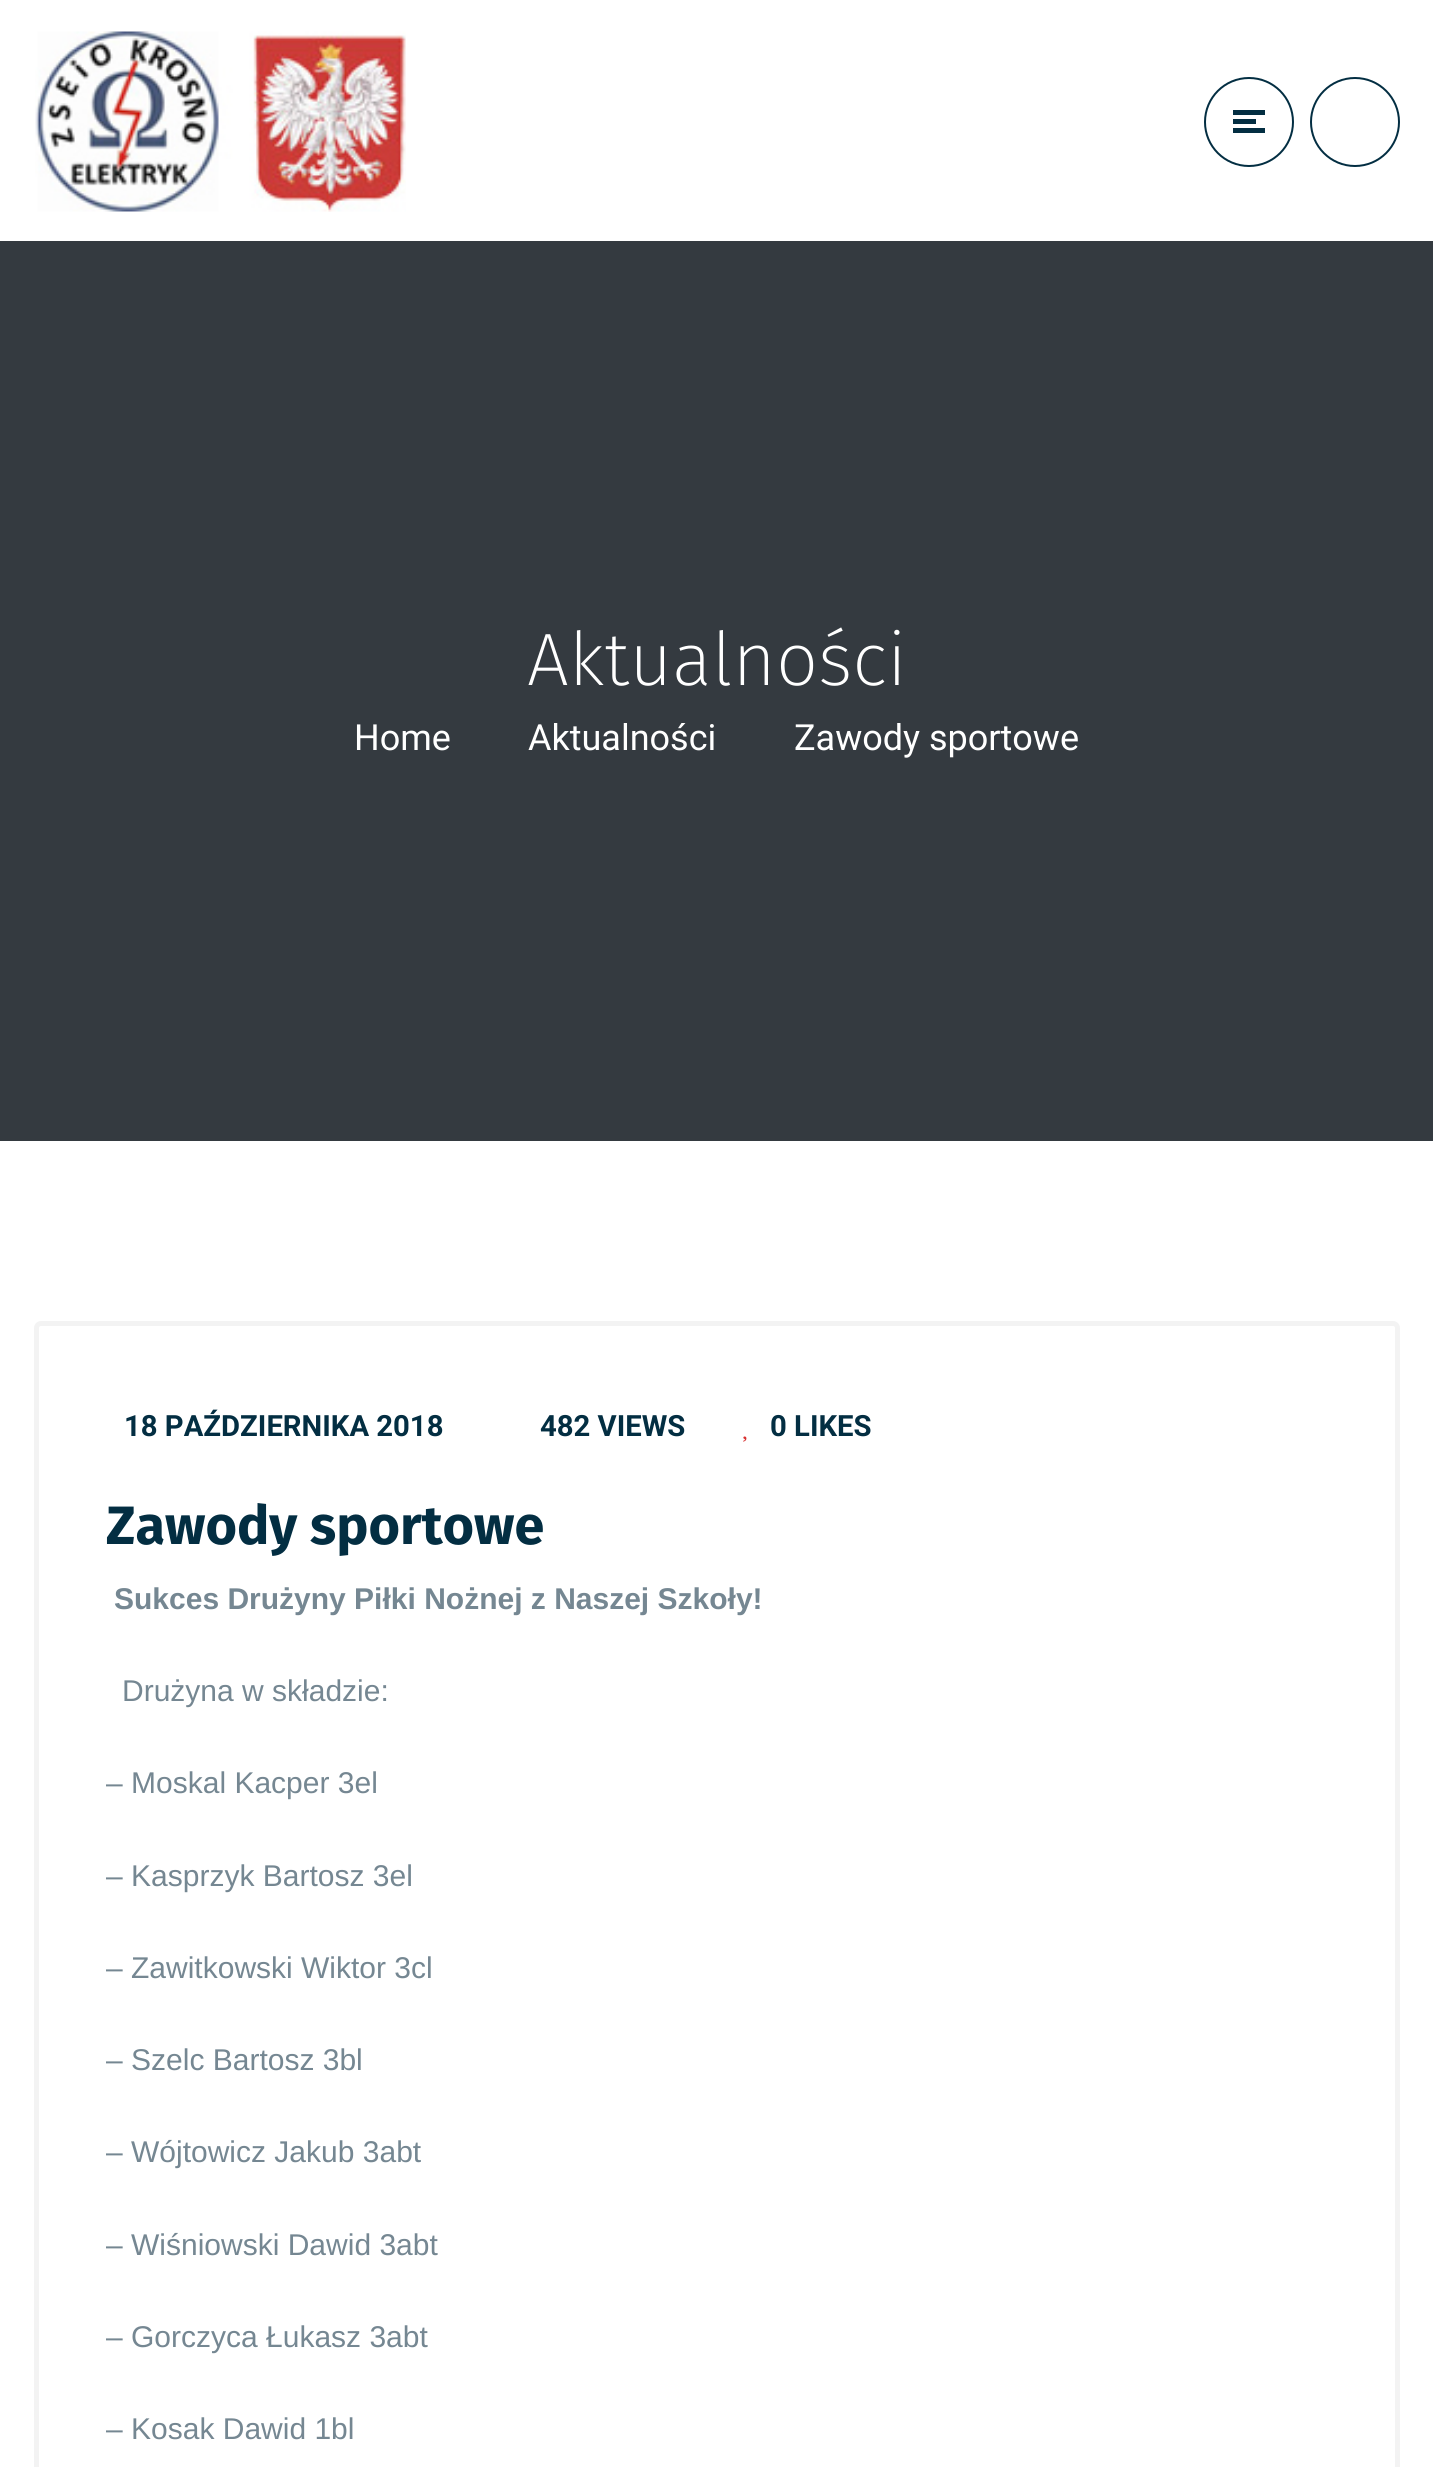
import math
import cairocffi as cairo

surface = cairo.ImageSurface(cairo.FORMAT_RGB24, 1433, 2467)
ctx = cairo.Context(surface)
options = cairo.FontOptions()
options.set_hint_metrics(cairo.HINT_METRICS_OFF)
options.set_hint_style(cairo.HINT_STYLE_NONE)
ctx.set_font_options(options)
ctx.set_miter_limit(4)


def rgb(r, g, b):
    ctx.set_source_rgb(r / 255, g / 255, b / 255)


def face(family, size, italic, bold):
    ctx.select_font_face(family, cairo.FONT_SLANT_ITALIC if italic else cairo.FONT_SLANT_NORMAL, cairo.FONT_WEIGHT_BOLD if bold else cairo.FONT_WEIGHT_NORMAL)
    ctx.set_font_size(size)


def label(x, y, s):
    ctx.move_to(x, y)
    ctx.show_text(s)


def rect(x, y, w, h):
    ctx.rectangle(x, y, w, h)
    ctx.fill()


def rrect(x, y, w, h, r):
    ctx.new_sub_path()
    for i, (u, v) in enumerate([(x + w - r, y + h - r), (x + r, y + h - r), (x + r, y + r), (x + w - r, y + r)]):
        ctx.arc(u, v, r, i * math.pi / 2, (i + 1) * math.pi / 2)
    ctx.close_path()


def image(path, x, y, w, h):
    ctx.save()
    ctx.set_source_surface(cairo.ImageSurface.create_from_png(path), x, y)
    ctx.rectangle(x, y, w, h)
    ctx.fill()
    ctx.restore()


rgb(255, 255, 255)
ctx.paint()
image('image0.png', 35, 31, 371, 181)
ctx.arc(1249, 122, 44, 0, 2 * math.pi)
rgb(3, 46, 66)
ctx.stroke()
rect(1233, 110, 32, 5)
rect(1233, 119, 23, 5)
rect(1233, 128, 32, 5)
ctx.arc(1355, 122, 44, 0, 2 * math.pi)
ctx.stroke()
rgb(52, 58, 64)
rect(0, 241, 1433, 900)
face('Fira Sans ExtraLight', 74.25, 0, 0)
rgb(255, 255, 255)
label(527, 685, 'Aktualności')
face('Roboto', 36, 0, 0)
label(354, 750, 'Home')
label(528, 750, 'Aktualności')
label(794, 750, 'Zawody sportowe')
rrect(36.5, 1323.5, 1361, 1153, 4.5)
rgb(243, 243, 243)
ctx.set_line_width(5)
ctx.stroke()
face('Roboto', 29.25, 0, 1)
rgb(3, 46, 66)
label(124, 1436, '18 PAŹDZIERNIKA 2018')
label(540, 1436, '482 VIEWS')
label(770, 1436, '0 LIKES')
image('image1.png', 743, 1436, 4, 6)
face('Fira Sans', 54, 0, 1)
label(106, 1544, 'Zawody sportowe')
face('Liberation Sans', 30, 0, 1)
rgb(117, 135, 146)
label(114, 1609, 'Sukces Drużyny Piłki Nożnej z Naszej Szkoły!')
face('Liberation Sans', 30, 0, 0)
label(122, 1701, 'Drużyna w składzie:')
label(106, 1793, '– Moskal Kacper 3el')
label(106, 1886, '– Kasprzyk Bartosz 3el')
label(106, 1978, '– Zawitkowski Wiktor 3cl')
label(106, 2070, '– Szelc Bartosz 3bl')
label(106, 2162, '– Wójtowicz Jakub 3abt')
label(106, 2255, '– Wiśniowski Dawid 3abt')
label(106, 2347, '– Gorczyca Łukasz 3abt')
label(106, 2439, '– Kosak Dawid 1bl')
surface.write_to_png('render.png')
